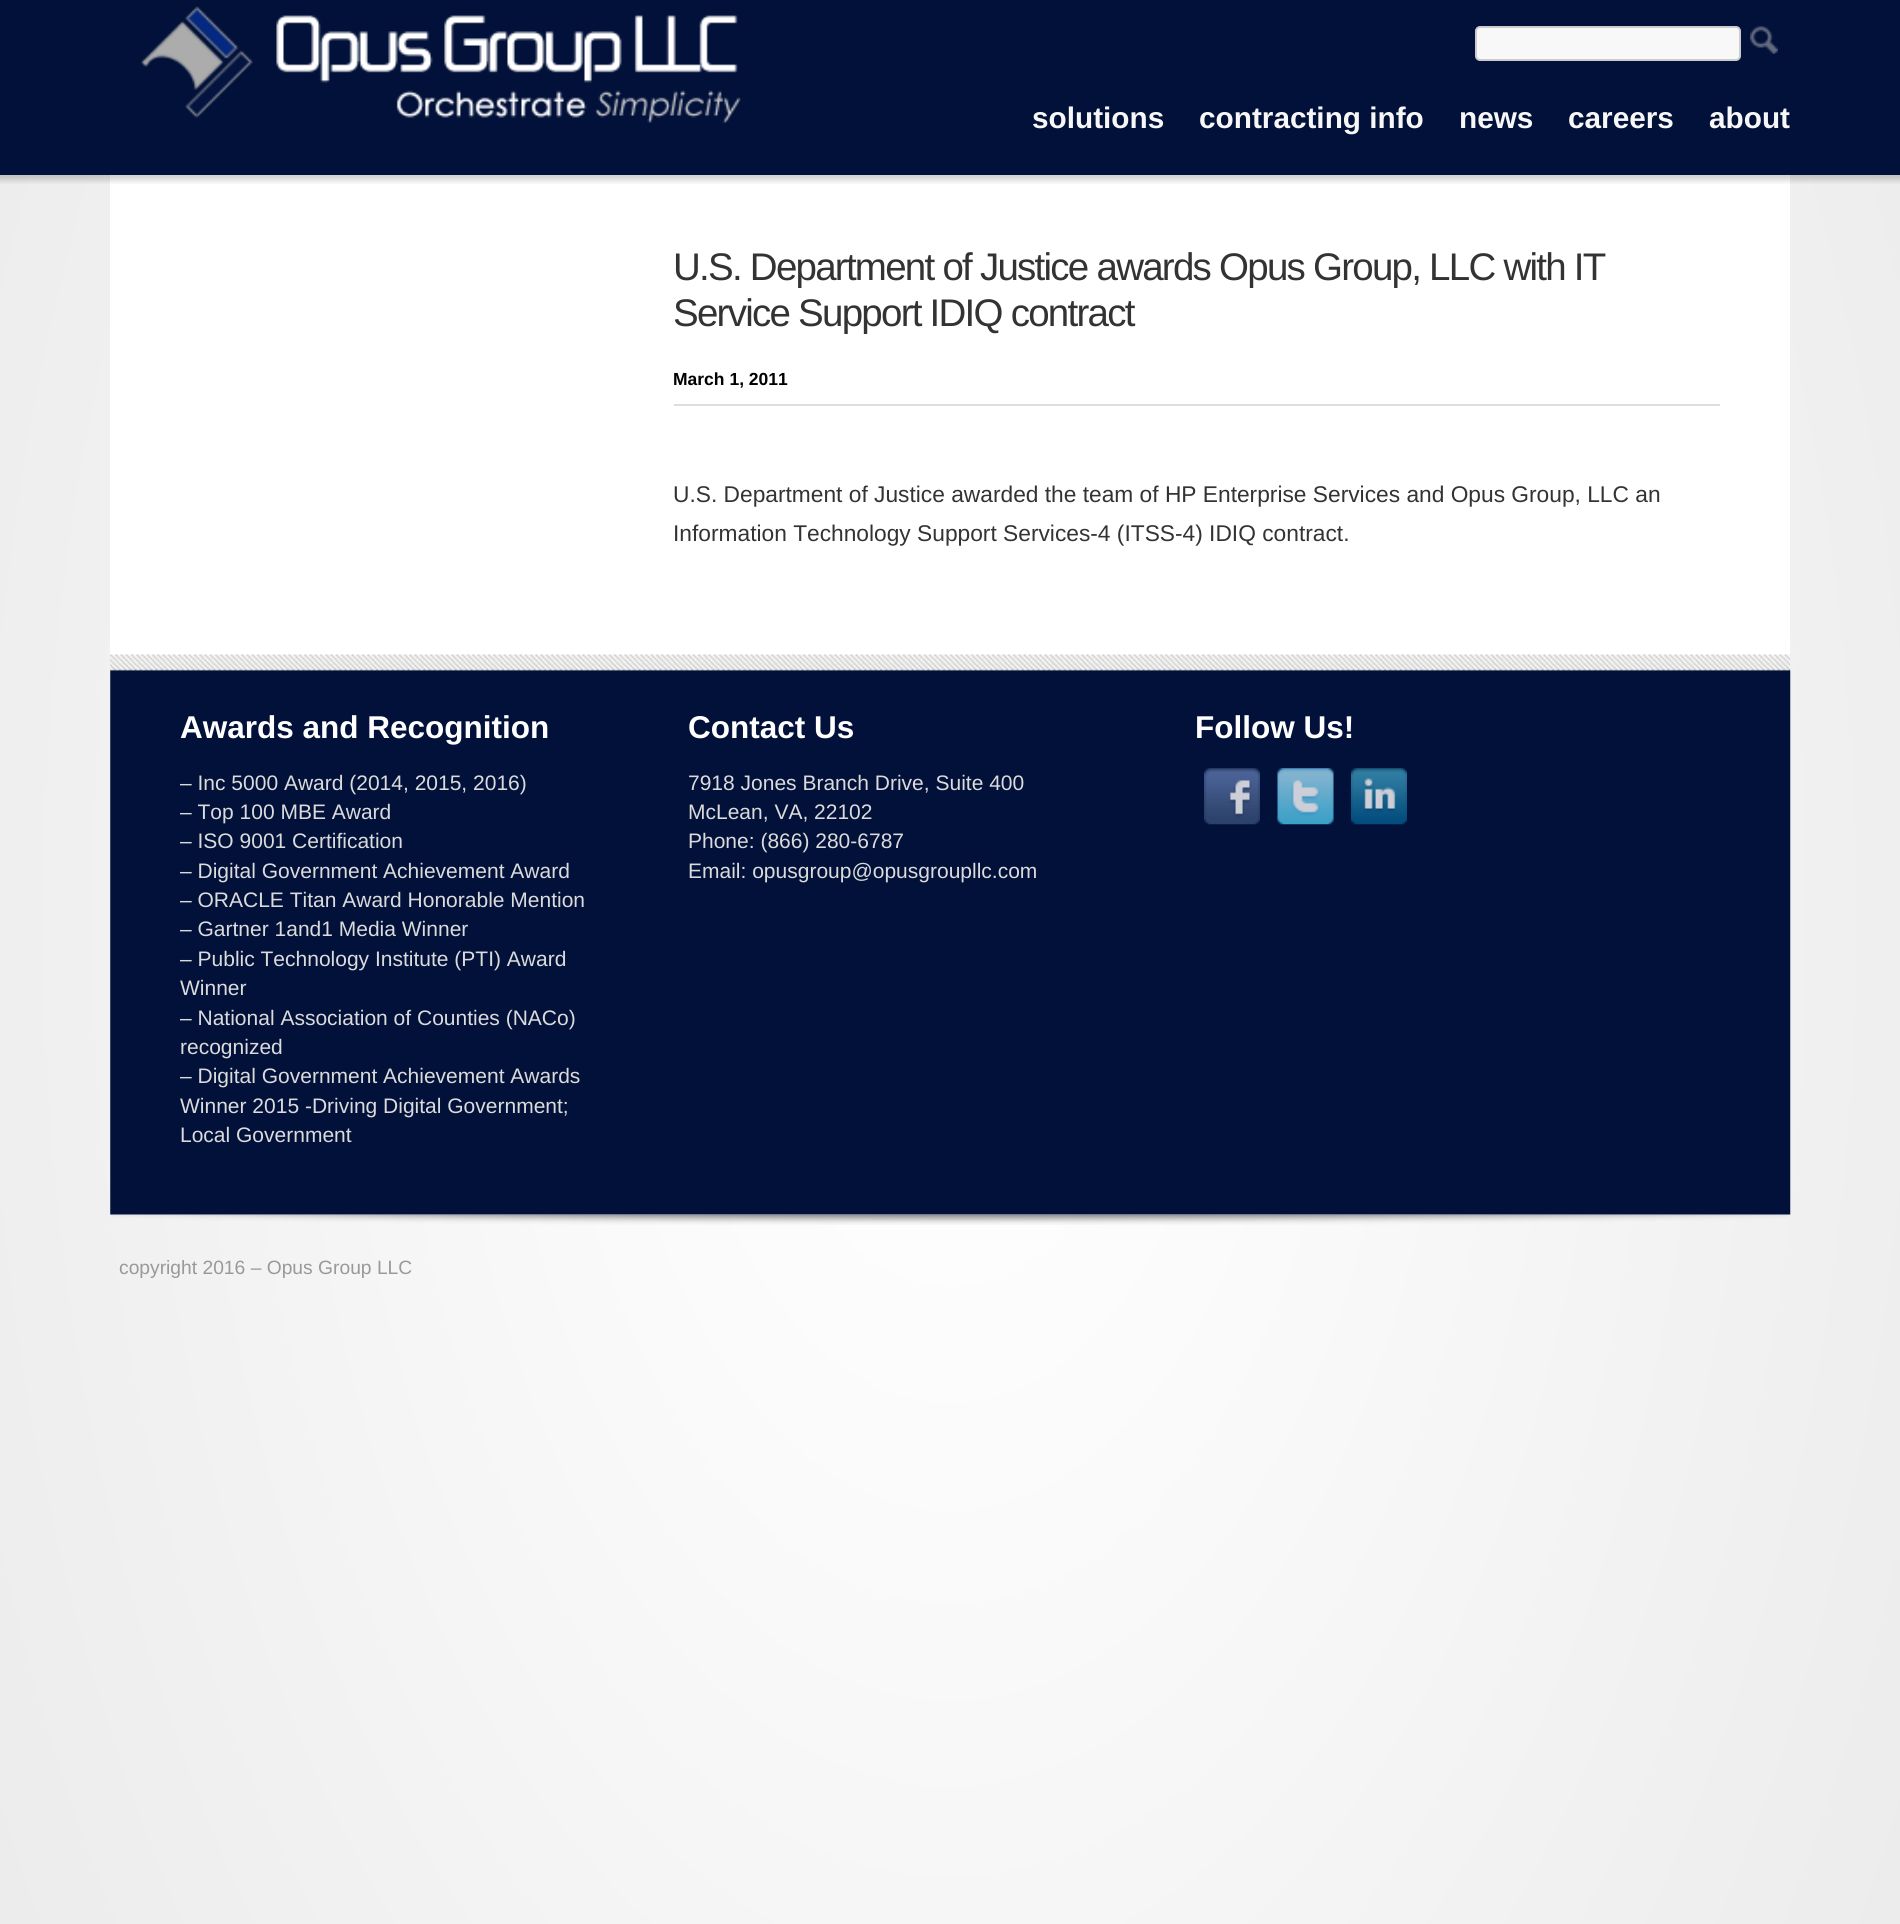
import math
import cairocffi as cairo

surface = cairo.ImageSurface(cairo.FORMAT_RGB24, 1900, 1924)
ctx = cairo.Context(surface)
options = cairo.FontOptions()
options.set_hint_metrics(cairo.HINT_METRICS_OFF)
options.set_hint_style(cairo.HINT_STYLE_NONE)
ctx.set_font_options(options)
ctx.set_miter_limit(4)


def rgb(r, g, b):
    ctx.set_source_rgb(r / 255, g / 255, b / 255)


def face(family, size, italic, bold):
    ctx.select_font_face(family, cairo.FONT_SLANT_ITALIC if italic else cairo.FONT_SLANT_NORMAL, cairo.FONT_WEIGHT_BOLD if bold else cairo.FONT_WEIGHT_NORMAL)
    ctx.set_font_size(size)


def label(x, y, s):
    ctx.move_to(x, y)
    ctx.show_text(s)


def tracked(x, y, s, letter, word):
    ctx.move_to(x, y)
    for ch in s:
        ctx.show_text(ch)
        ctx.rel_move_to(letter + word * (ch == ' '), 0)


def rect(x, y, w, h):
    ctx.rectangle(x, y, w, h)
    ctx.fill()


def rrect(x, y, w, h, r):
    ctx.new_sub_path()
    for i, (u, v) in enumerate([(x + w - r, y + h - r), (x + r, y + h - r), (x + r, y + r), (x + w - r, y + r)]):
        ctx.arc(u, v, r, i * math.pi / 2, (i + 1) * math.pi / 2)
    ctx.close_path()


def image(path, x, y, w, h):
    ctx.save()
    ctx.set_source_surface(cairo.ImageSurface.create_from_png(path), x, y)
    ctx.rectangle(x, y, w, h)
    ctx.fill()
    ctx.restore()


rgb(233, 233, 233)
ctx.paint()
rgb(2, 17, 57)
rect(0, 0, 1900, 175)
rgb(248, 248, 248)
rrect(1476, 27, 264, 33, 4)
ctx.fill_preserve()
rgb(204, 204, 204)
ctx.stroke()
image('image0.png', 1750, 26, 28, 28)
image('image1.png', 141, 6, 600, 117)
face('Liberation Sans', 29.75, 0, 1)
rgb(247, 247, 247)
label(1032, 128, 'solutions')
label(1199, 128, 'contracting info')
label(1459, 128, 'news')
label(1568, 128, 'careers')
label(1709, 128, 'about')
image('image2.png', 0, 175, 1900, 1749)
rgb(255, 255, 255)
rect(110, 175, 1680, 480)
image('image3.png', 0, 175, 1900, 9)
face('Liberation Sans', 38.5, 0, 0)
rgb(51, 51, 51)
tracked(673, 280, 'U.S. Department of Justice awards Opus Group, LLC with IT', -1.75, 0)
tracked(673, 326, 'Service Support IDIQ contract', -1.75, 0)
rgb(221, 221, 221)
rect(674, 404, 1046, 2)
face('Liberation Sans', 17.5, 0, 1)
rgb(0, 0, 0)
label(673, 385, 'March 1, 2011')
face('Liberation Sans', 22.75, 0, 0)
rgb(51, 51, 51)
label(673, 502, 'U.S. Department of Justice awarded the team of HP Enterprise Services and Opus Group, LLC an')
label(673, 541, 'Information Technology Support Services-4 (ITSS-4) IDIQ contract.')
rgb(232, 232, 232)
rect(110, 655, 1680, 560)
image('image4.png', 110, 654, 1681, 561)
face('Liberation Sans', 31.5, 0, 1)
rgb(255, 255, 255)
label(180, 738, 'Awards and Recognition')
face('Liberation Sans', 21, 0, 0)
rgb(219, 219, 219)
label(180, 790, '– Inc 5000 Award (2014, 2015, 2016)')
label(180, 819, '– Top 100 MBE Award')
label(180, 848, '– ISO 9001 Certification')
label(180, 878, '– Digital Government Achievement Award')
label(180, 907, '– ORACLE Titan Award Honorable Mention')
label(180, 936, '– Gartner 1and1 Media Winner')
label(180, 966, '– Public Technology Institute (PTI) Award')
label(180, 995, 'Winner')
label(180, 1025, '– National Association of Counties (NACo)')
label(180, 1054, 'recognized')
label(180, 1083, '– Digital Government Achievement Awards')
label(180, 1113, 'Winner 2015 -Driving Digital Government;')
label(180, 1142, 'Local Government')
face('Liberation Sans', 31.5, 0, 1)
rgb(255, 255, 255)
label(688, 738, 'Contact Us')
face('Liberation Sans', 21, 0, 0)
rgb(219, 219, 219)
label(688, 790, '7918 Jones Branch Drive, Suite 400')
label(688, 819, 'McLean, VA, 22102')
label(688, 848, 'Phone: (866) 280-6787')
label(688, 878, 'Email: opusgroup@opusgroupllc.com')
face('Liberation Sans', 31.5, 0, 1)
rgb(255, 255, 255)
label(1195, 738, 'Follow Us!')
image('image5.png', 1204, 768, 56, 57)
image('image6.png', 1277, 768, 57, 57)
image('image7.png', 1351, 768, 56, 57)
image('image8.png', 111, 1215, 1677, 10)
face('Liberation Sans', 19.25, 0, 0)
rgb(153, 153, 153)
label(119, 1274, 'copyright 2016 – Opus Group LLC')
surface.write_to_png('render.png')
